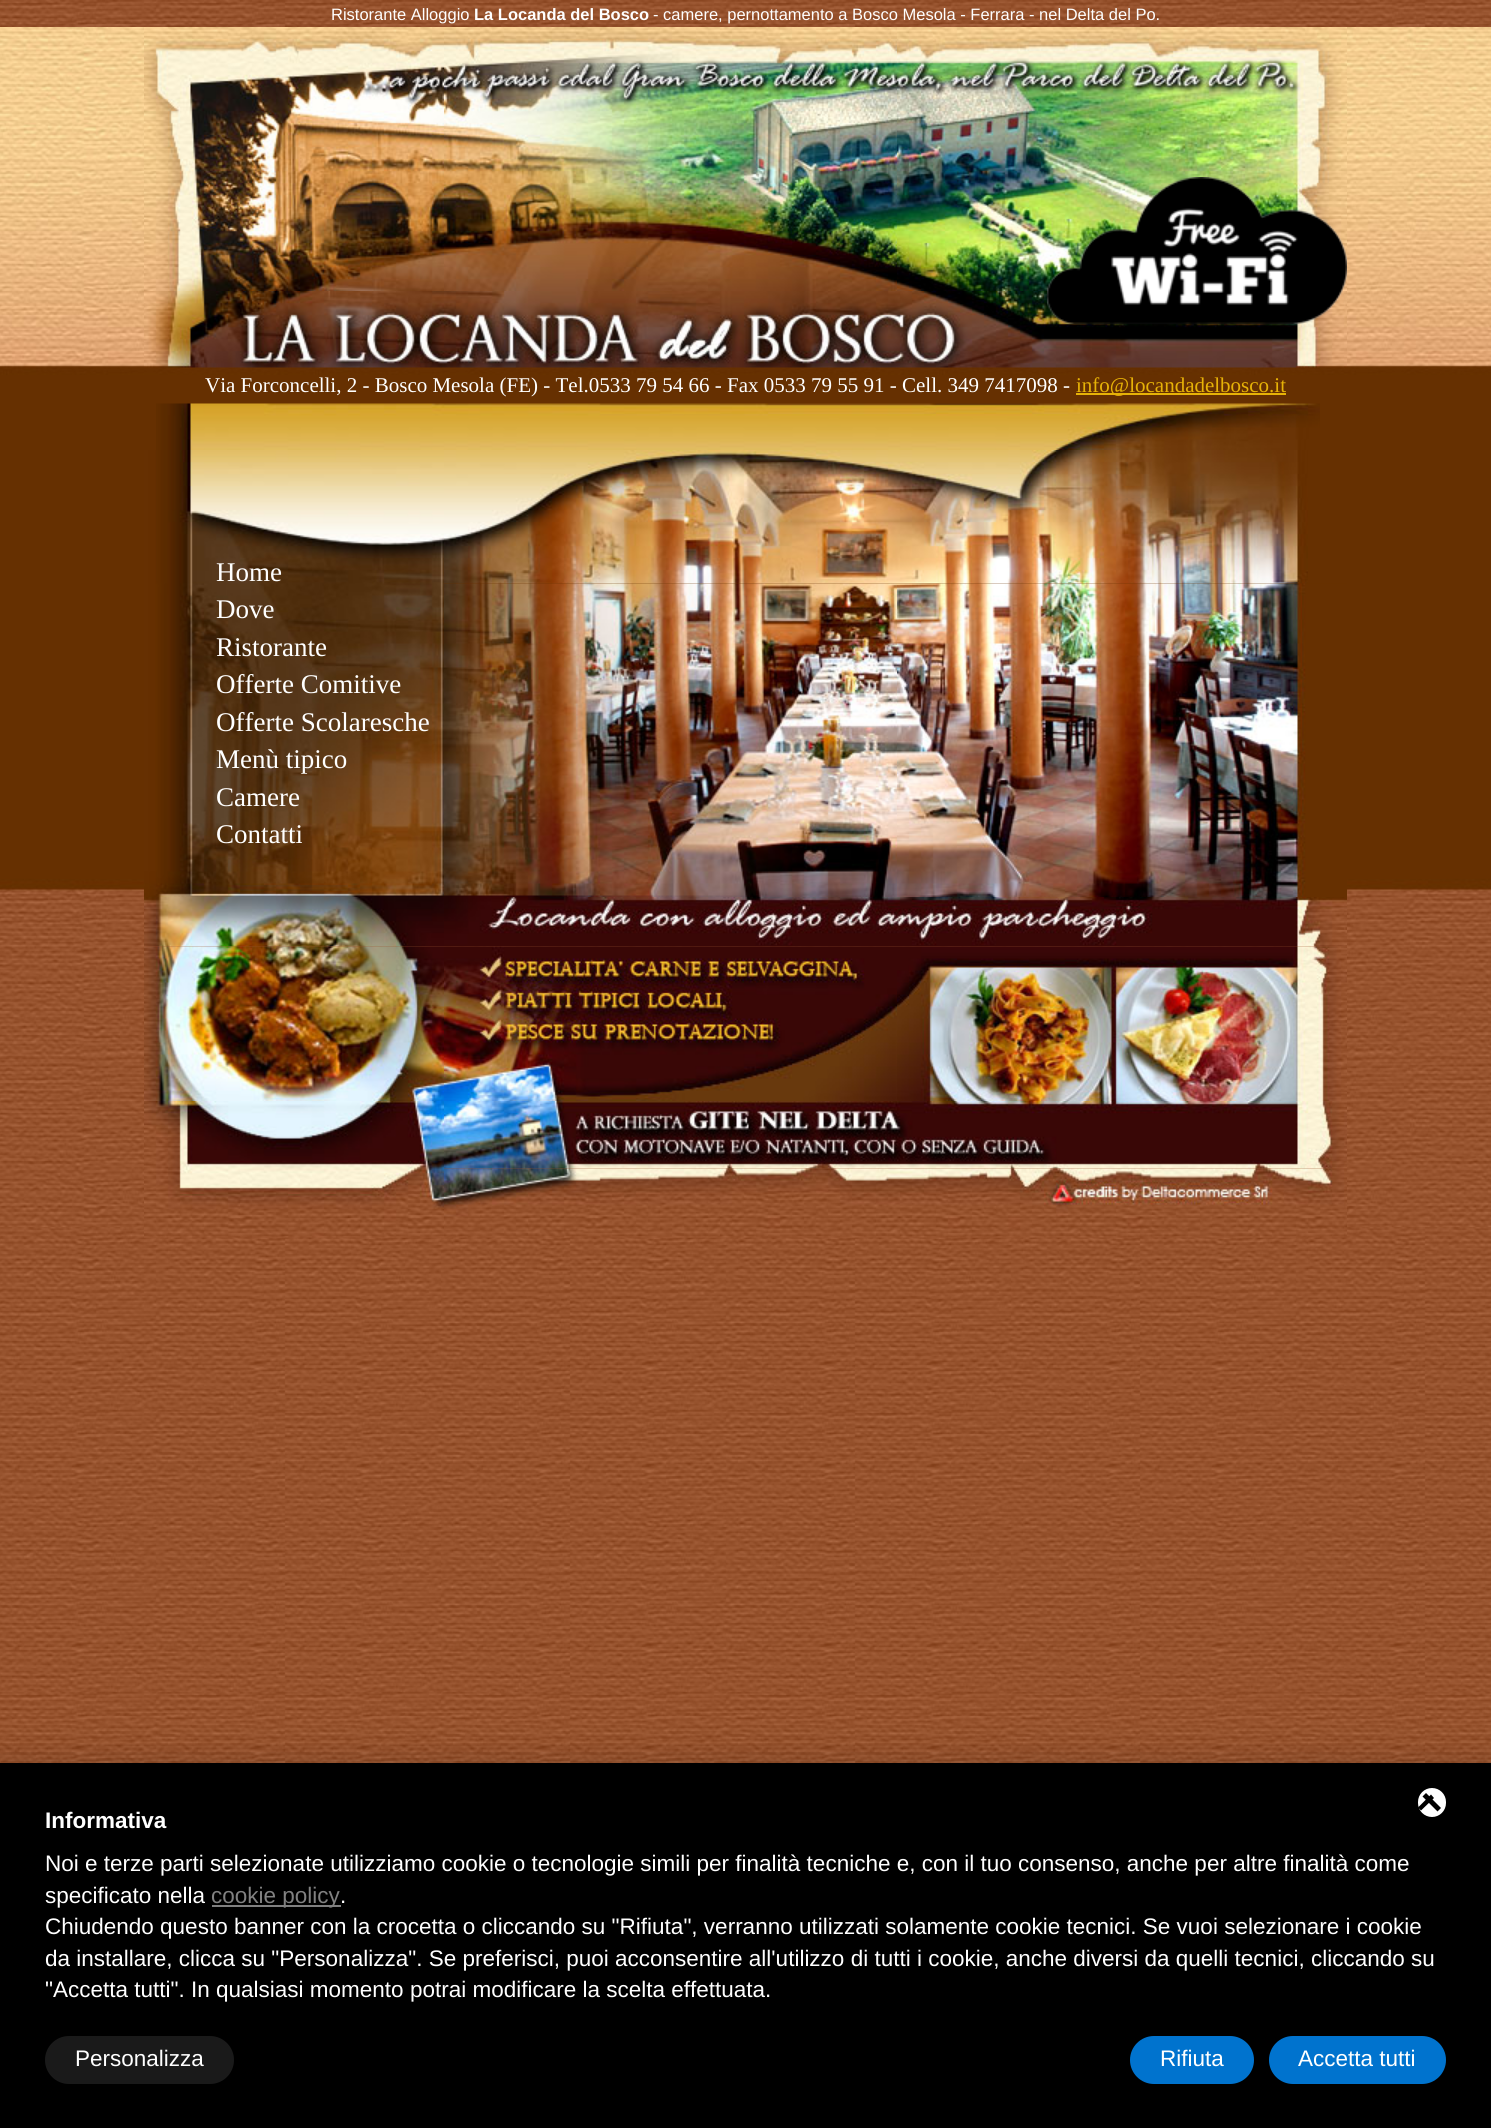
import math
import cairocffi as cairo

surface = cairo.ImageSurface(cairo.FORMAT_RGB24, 1491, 2128)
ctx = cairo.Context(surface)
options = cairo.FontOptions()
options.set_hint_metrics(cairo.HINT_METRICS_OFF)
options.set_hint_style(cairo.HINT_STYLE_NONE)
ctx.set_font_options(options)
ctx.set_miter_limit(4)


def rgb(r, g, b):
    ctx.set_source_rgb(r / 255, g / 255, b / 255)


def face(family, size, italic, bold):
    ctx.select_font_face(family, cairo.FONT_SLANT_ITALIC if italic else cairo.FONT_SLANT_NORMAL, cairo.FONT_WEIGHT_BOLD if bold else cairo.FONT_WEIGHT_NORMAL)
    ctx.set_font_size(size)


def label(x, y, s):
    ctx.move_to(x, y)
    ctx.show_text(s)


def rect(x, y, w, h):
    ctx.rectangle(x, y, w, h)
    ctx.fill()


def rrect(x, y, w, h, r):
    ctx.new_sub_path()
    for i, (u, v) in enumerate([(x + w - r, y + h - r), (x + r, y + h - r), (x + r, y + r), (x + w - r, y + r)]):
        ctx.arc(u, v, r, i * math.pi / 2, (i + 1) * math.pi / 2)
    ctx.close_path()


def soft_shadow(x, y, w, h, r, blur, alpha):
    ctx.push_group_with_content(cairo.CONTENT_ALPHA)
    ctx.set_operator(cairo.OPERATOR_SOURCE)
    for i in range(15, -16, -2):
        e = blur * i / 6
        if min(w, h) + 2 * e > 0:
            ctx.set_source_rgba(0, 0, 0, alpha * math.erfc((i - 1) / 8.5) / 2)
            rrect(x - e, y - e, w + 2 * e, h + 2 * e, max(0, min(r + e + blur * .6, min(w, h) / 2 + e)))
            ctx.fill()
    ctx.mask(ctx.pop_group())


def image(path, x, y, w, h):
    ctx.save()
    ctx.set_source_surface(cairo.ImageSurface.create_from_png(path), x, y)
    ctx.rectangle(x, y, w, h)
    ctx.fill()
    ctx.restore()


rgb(255, 255, 255)
ctx.paint()
image('image0.png', 0, 0, 1491, 1763)
face('Liberation Sans', 16.5, 0, 0)
rgb(255, 255, 255)
label(331, 20, 'Ristorante Alloggio')
face('Liberation Sans', 16.5, 0, 1)
label(474, 20, 'La Locanda del Bosco')
face('Liberation Sans', 16.5, 0, 0)
label(653, 20, '- camere, pernottamento a Bosco Mesola - Ferrara - nel Delta del Po.')
image('image1.png', 0, 27, 1491, 1200)
image('image2.png', 144, 27, 300, 264)
image('image3.png', 444, 27, 453, 264)
image('image4.png', 897, 27, 450, 264)
image('image6.png', 144, 291, 1203, 77)
image('image5.png', 1047, 177, 300, 147)
face('Liberation Serif', 21, 0, 0)
label(205, 392, 'Via Forconcelli, 2 - Bosco Mesola (FE) - Tel.0533 79 54 66 - Fax 0533 79 55 91 - Cell. 349 7417098 -')
rgb(231, 179, 7)
rect(1076, 393, 210, 2)
label(1076, 392, 'info@locandadelbosco.it')
image('image7.png', 156, 403, 1164, 47)
image('image8.png', 444, 450, 864, 134)
image('image9.png', 144, 450, 300, 447)
face('Liberation Serif', 27, 0, 0)
rgb(255, 255, 255)
label(216, 581, 'Home')
label(216, 618, 'Dove')
label(216, 656, 'Ristorante')
label(216, 693, 'Offerte Comitive')
label(216, 731, 'Offerte Scolaresche')
label(216, 768, 'Menù tipico')
label(216, 806, 'Camere')
label(216, 843, 'Contatti')
image('image10.png', 444, 583, 453, 314)
image('image11.png', 897, 583, 450, 314)
image('image12.png', 144, 897, 300, 50)
image('image13.png', 444, 897, 903, 50)
image('image14.png', 144, 946, 300, 155)
image('image15.png', 444, 946, 453, 155)
image('image16.png', 897, 946, 450, 155)
image('image17.png', 144, 1101, 300, 137)
image('image18.png', 444, 1101, 903, 68)
image('image19.png', 444, 1168, 903, 70)
rgb(0, 0, 0)
soft_shadow(0, 1778, 1491, 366, 0, 22.5, 0.33)
rgb(0, 0, 0)
rect(0, 1763, 1491, 365)
rgb(255, 255, 255)
rrect(1418, 1788, 28, 29, 14)
ctx.fill()
rgb(0, 0, 0)
ctx.new_path()
ctx.move_to(1422.5, 1796.5)
ctx.line_to(1426, 1793)
ctx.line_to(1441, 1808)
ctx.line_to(1437.5, 1811.5)
ctx.close_path()
ctx.fill()
ctx.new_path()
ctx.move_to(1431, 1794.5)
ctx.line_to(1434, 1798)
ctx.line_to(1421, 1810.5)
ctx.line_to(1418, 1807.5)
ctx.close_path()
ctx.fill()
face('Liberation Sans', 22.5, 0, 1)
rgb(255, 255, 255)
label(45, 1828, 'Informativa')
face('Liberation Sans', 22.5, 0, 0)
label(45, 1871, 'Noi e terze parti selezionate utilizziamo cookie o tecnologie simili per finalità tecniche e, con il tuo consenso, anche per altre finalità come')
label(45, 1903, 'specificato nella')
rgb(128, 128, 128)
rect(212, 1905, 129, 2)
rgb(129, 129, 129)
label(211, 1903, 'cookie policy')
rgb(255, 255, 255)
label(340, 1903, '.')
label(45, 1934, 'Chiudendo questo banner con la crocetta o cliccando su "Rifiuta", verranno utilizzati solamente cookie tecnici. Se vuoi selezionare i cookie')
label(45, 1966, 'da installare, clicca su "Personalizza". Se preferisci, puoi acconsentire all\'utilizzo di tutti i cookie, anche diversi da quelli tecnici, cliccando su')
label(45, 1997, '"Accetta tutti". In qualsiasi momento potrai modificare la scelta effettuata.')
rgb(26, 26, 26)
rrect(45, 2036, 189, 48, 24)
ctx.fill()
rgb(255, 255, 255)
label(75, 2066, 'Personalizza')
rgb(0, 115, 206)
rrect(1130, 2036, 124, 48, 24)
ctx.fill()
rgb(255, 255, 255)
label(1160, 2066, 'Rifiuta')
rgb(0, 115, 206)
rrect(1269, 2036, 177, 48, 24)
ctx.fill()
rgb(255, 255, 255)
label(1298, 2066, 'Accetta tutti')
surface.write_to_png('render.png')
